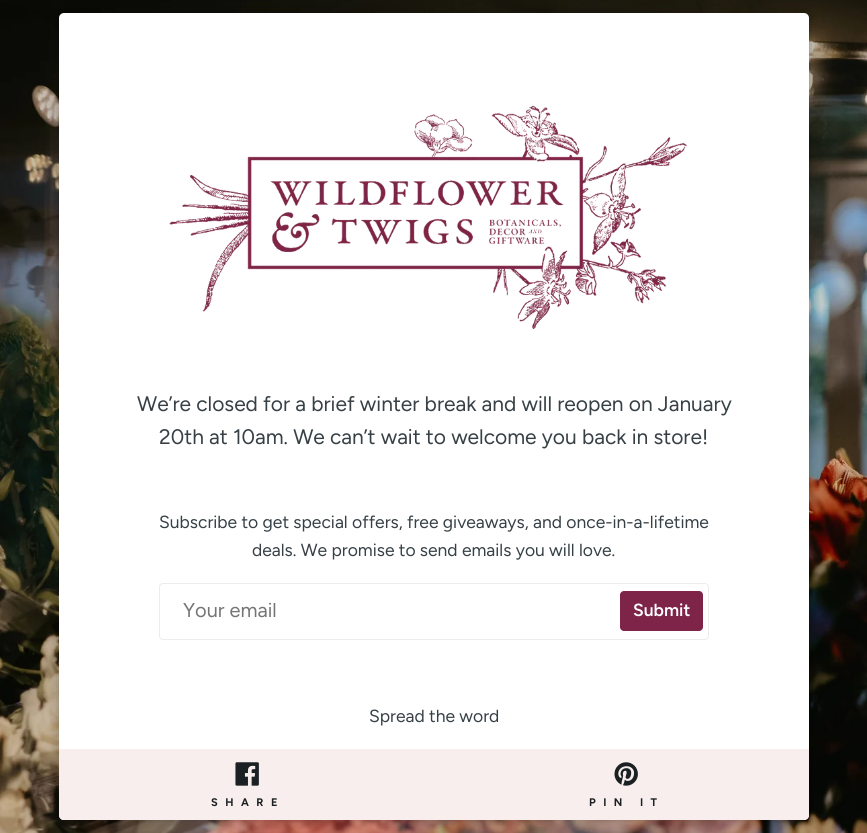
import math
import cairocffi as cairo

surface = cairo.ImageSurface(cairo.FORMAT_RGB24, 867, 833)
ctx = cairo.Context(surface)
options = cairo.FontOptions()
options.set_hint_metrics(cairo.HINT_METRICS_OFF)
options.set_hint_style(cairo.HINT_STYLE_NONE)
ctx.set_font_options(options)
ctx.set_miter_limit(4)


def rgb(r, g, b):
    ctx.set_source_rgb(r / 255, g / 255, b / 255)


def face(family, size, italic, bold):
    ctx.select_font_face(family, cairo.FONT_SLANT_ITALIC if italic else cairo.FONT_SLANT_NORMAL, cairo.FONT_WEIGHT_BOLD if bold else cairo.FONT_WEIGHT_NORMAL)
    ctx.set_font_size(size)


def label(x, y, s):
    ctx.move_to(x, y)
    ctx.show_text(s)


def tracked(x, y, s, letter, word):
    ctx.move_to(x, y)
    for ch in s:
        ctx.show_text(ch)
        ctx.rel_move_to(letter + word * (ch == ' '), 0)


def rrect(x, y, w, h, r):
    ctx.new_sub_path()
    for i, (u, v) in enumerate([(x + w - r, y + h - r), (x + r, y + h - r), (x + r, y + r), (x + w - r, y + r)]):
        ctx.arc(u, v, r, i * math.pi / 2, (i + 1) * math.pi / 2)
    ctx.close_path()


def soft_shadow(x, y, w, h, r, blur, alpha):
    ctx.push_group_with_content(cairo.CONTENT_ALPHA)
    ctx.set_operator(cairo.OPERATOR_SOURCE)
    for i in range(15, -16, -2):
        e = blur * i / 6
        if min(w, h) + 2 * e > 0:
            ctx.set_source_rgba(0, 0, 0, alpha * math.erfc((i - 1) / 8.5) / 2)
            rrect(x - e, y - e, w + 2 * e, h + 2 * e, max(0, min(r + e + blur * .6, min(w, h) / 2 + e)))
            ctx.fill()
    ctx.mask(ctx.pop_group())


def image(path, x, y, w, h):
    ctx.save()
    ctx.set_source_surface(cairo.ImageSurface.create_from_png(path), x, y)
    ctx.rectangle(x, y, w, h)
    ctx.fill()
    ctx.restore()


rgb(255, 255, 255)
ctx.paint()
image('image0.png', 0, 0, 867, 833)
rgb(0, 0, 0)
soft_shadow(59, 13, 750, 807, 5, 6, 0.3)
rgb(255, 255, 255)
rrect(59, 13, 750, 807, 5)
ctx.fill()
image('image1.png', 169, 105, 518, 224)
face('Figtree', 21, 0, 0)
rgb(54, 64, 69)
label(137, 411, 'We’re closed for a brief winter break and will reopen on January')
label(159, 444, '20th at 10am. We can’t wait to welcome you back in store!')
face('Figtree', 17.5, 0, 0)
label(159, 528, 'Subscribe to get special offers, free giveaways, and once-in-a-lifetime')
label(252, 556, 'deals. We promise to send emails you will love.')
rrect(159.5, 583.5, 549, 56, 3.5)
rgb(236, 236, 236)
ctx.set_line_width(1)
ctx.stroke()
face('Figtree', 20, 0, 0)
rgb(117, 117, 117)
label(183, 617, 'Your email')
rgb(126, 36, 73)
rrect(620, 591, 83, 40, 4)
ctx.fill()
face('Figtree SemiBold', 17.5, 0, 0)
rgb(255, 255, 255)
label(633, 616, 'Submit')
face('Figtree', 17.5, 0, 0)
rgb(54, 64, 69)
label(369, 722, 'Spread the word')
rgb(248, 238, 238)
ctx.new_path()
ctx.move_to(59, 749)
ctx.line_to(436, 749)
ctx.line_to(436, 820)
ctx.line_to(64, 820)
ctx.curve_to(61, 820, 59, 818, 59, 815)
ctx.close_path()
ctx.fill()
image('image2.png', 235, 762, 24, 24)
face('Figtree', 11, 0, 1)
rgb(27, 32, 35)
tracked(211, 806, 'SHARE', 7.5, 0)
rgb(248, 238, 238)
ctx.new_path()
ctx.move_to(436, 749)
ctx.line_to(809, 749)
ctx.line_to(809, 815)
ctx.curve_to(809, 818, 807, 820, 804, 820)
ctx.line_to(436, 820)
ctx.close_path()
ctx.fill()
image('image3.png', 614, 762, 24, 24)
rgb(27, 32, 35)
tracked(589, 806, 'PIN IT', 7.5, 0)
surface.write_to_png('render.png')
